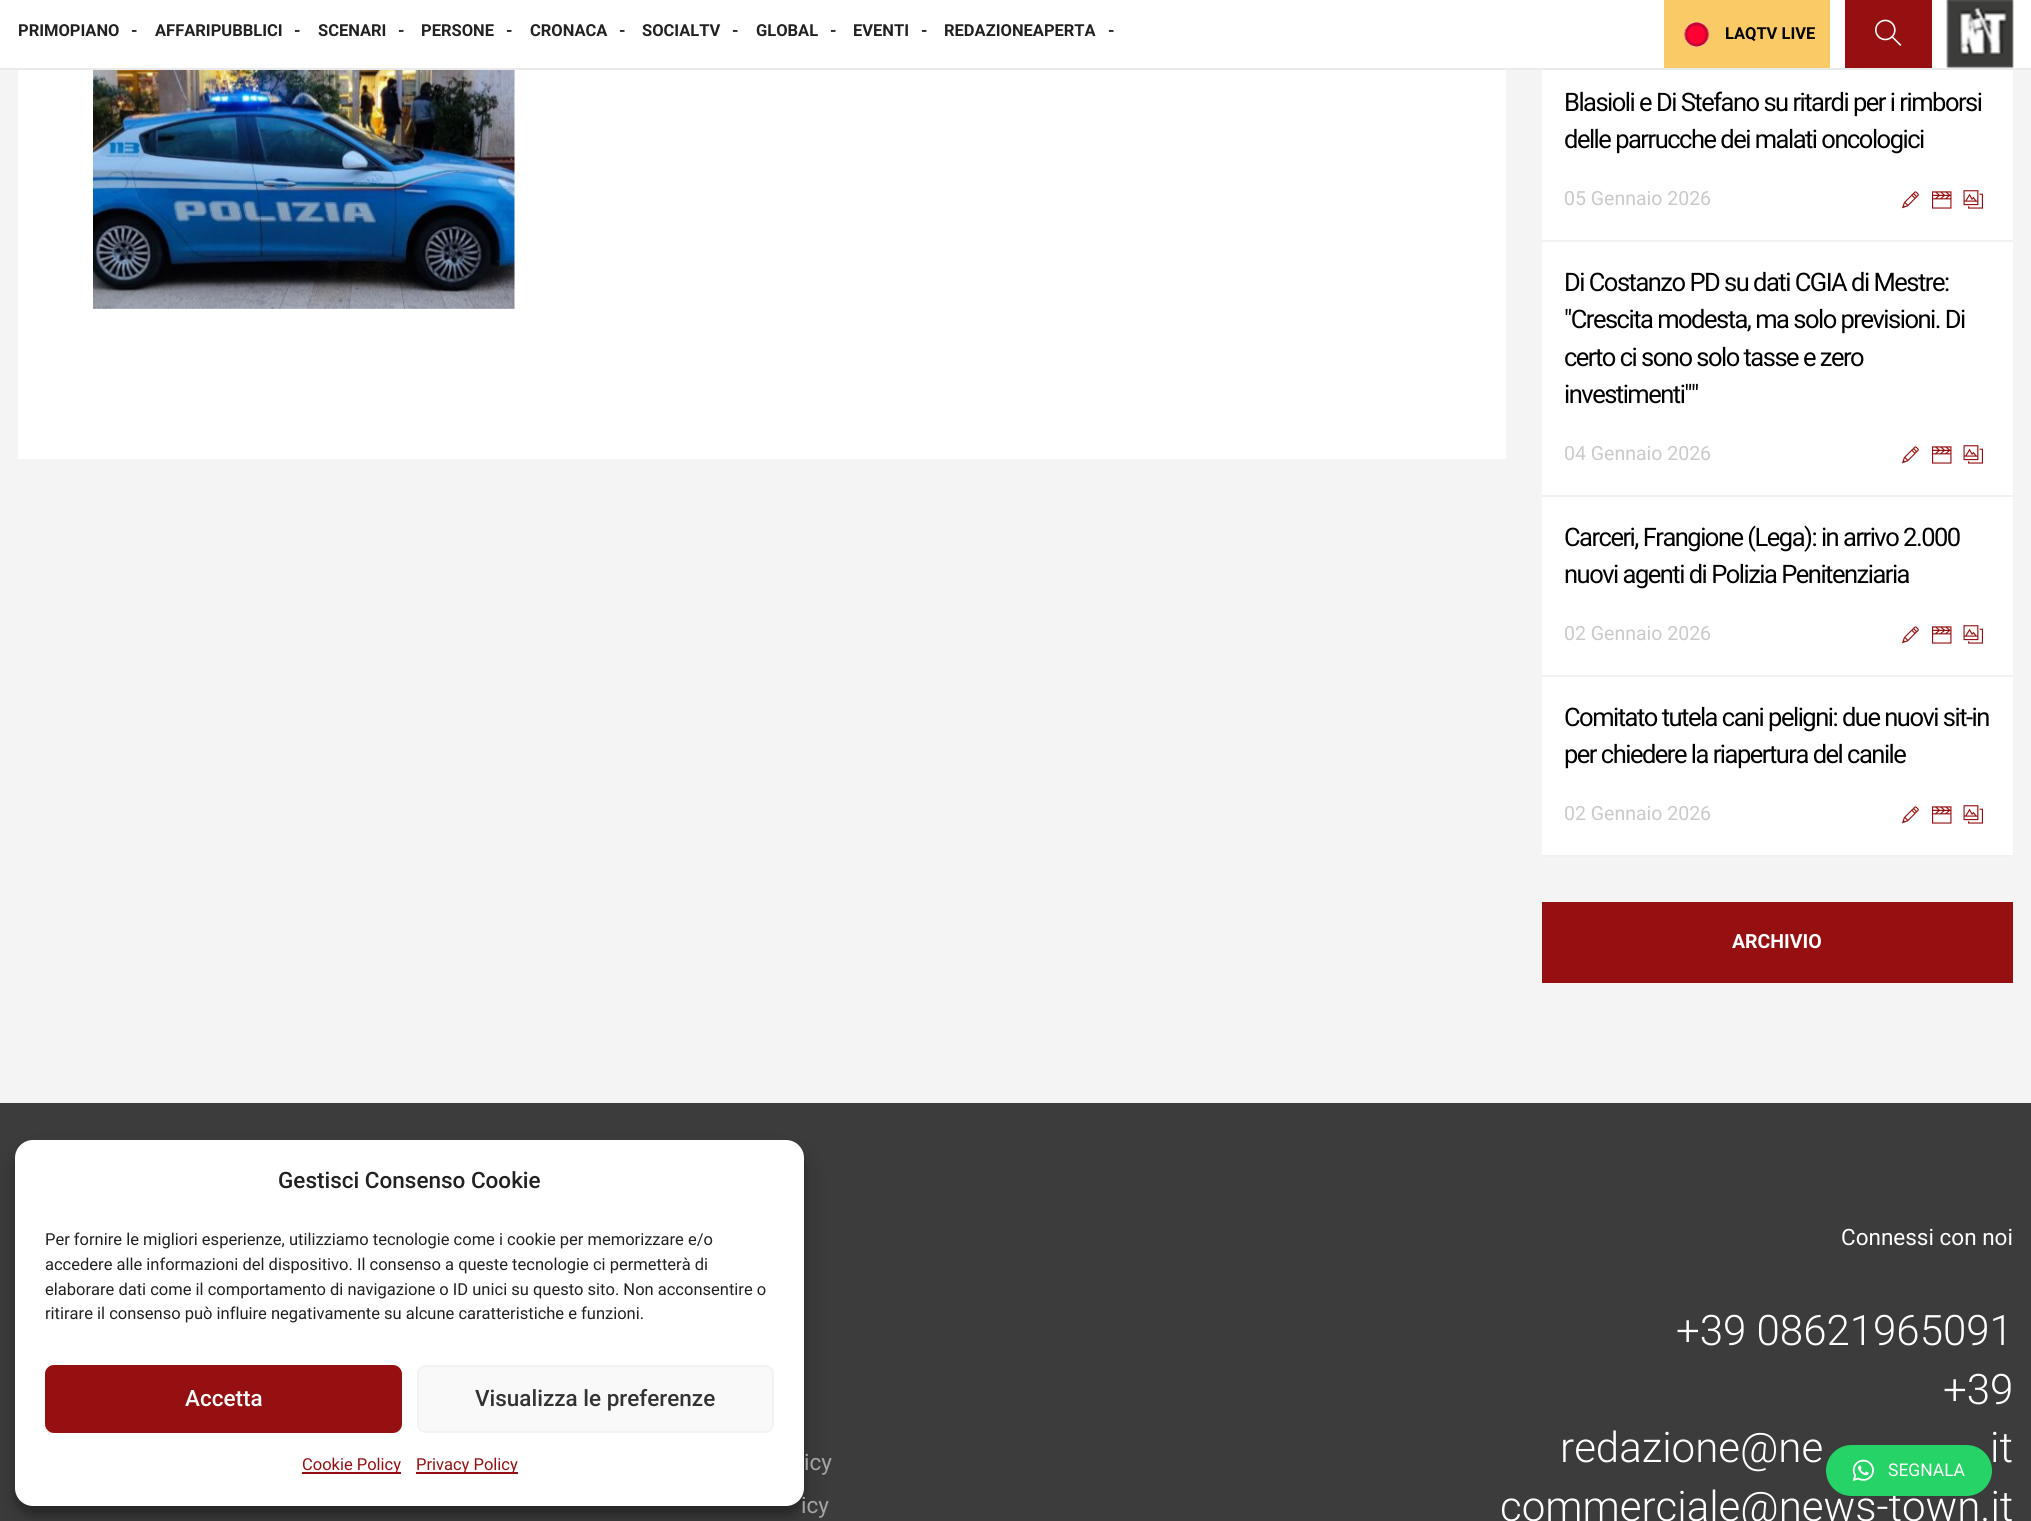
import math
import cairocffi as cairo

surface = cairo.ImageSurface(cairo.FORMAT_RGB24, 2031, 1521)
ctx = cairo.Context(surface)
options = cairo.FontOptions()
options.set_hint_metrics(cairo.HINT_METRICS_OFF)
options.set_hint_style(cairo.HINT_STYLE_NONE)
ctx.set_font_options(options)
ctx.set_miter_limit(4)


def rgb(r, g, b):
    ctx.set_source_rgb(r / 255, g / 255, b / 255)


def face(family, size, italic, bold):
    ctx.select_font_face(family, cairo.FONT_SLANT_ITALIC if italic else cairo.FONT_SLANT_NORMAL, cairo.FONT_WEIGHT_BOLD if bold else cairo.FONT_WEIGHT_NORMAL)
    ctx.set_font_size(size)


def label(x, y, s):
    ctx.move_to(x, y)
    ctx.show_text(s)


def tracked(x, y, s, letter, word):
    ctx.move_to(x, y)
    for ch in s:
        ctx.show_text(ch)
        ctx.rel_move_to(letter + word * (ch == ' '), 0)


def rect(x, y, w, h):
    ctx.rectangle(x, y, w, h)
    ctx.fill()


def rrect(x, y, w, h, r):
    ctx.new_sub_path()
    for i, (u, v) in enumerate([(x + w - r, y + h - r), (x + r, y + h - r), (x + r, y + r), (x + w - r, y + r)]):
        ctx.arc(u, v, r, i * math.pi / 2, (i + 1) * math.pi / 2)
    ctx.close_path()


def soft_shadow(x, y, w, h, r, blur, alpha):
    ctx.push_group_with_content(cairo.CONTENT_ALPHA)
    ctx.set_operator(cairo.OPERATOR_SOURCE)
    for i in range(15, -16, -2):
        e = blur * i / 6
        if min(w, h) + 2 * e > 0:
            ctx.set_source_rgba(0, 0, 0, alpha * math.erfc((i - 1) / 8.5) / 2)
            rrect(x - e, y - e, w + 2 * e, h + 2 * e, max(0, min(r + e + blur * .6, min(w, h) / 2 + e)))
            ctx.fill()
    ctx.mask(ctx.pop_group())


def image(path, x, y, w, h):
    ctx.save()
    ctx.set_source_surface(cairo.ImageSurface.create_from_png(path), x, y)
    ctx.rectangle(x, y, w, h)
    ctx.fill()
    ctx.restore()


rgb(60, 60, 60)
ctx.paint()
rgb(255, 255, 255)
rect(0, 0, 2031, 68)
rgb(234, 234, 234)
rect(0, 68, 2031, 2)
face('Roboto', 16.5, 0, 1)
rgb(33, 33, 33)
label(18, 36, 'PRIMOPIANO')
label(131, 36, '-')
label(155, 36, 'AFFARIPUBBLICI')
label(294, 36, '-')
label(318, 36, 'SCENARI')
label(398, 36, '-')
label(421, 36, 'PERSONE')
label(506, 36, '-')
label(530, 36, 'CRONACA')
label(619, 36, '-')
label(642, 36, 'SOCIALTV')
label(732, 36, '-')
label(756, 36, 'GLOBAL')
label(830, 36, '-')
label(853, 36, 'EVENTI')
label(921, 36, '-')
label(944, 36, 'REDAZIONEAPERTA')
label(1108, 36, '-')
rgb(250, 202, 102)
rect(1664, 0, 166, 68)
image('image0.png', 1683, 22, 27, 25)
rgb(0, 0, 0)
label(1725, 39, 'LAQTV LIVE')
rgb(150, 16, 17)
rect(1845, 0, 87, 68)
image('image1.png', 1875, 19, 27, 27)
image('image2.png', 1946, 0, 68, 68)
rgb(244, 244, 244)
rect(0, 70, 2031, 1033)
rgb(255, 255, 255)
rect(18, 70, 1488, 389)
image('image3.png', 93, 70, 422, 239)
rect(1542, 70, 471, 170)
rgb(241, 241, 241)
rect(1542, 240, 471, 2)
face('Roboto', 25.5, 0, 0)
rgb(0, 0, 0)
tracked(1564, 111, 'Blasioli e Di Stefano su ritardi per i rimborsi', -1.5, 0)
tracked(1564, 148, 'delle parrucche dei malati oncologici', -1.5, 0)
face('Roboto', 19.5, 0, 0)
rgb(202, 202, 202)
label(1564, 205, '05 Gennaio 2026')
image('image4.png', 1902, 191, 17, 18)
image('image5.png', 1932, 191, 20, 18)
image('image6.png', 1963, 190, 20, 19)
rgb(255, 255, 255)
rect(1542, 242, 471, 253)
rgb(241, 241, 241)
rect(1542, 495, 471, 2)
face('Roboto', 25.5, 0, 0)
rgb(0, 0, 0)
tracked(1564, 291, 'Di Costanzo PD su dati CGIA di Mestre:', -1.5, 0)
tracked(1564, 328, '"Crescita modesta, ma solo previsioni. Di', -1.5, 0)
tracked(1564, 366, 'certo ci sono solo tasse e zero', -1.5, 0)
tracked(1564, 403, 'investimenti""', -1.5, 0)
face('Roboto', 19.5, 0, 0)
rgb(202, 202, 202)
label(1564, 460, '04 Gennaio 2026')
image('image4.png', 1902, 446, 17, 18)
image('image5.png', 1932, 446, 20, 18)
image('image6.png', 1963, 445, 20, 19)
rgb(255, 255, 255)
rect(1542, 497, 471, 178)
rgb(241, 241, 241)
rect(1542, 675, 471, 2)
face('Roboto', 25.5, 0, 0)
rgb(0, 0, 0)
tracked(1564, 546, 'Carceri, Frangione (Lega): in arrivo 2.000', -1.5, 0)
tracked(1564, 583, 'nuovi agenti di Polizia Penitenziaria', -1.5, 0)
face('Roboto', 19.5, 0, 0)
rgb(202, 202, 202)
label(1564, 640, '02 Gennaio 2026')
image('image4.png', 1902, 626, 17, 18)
image('image5.png', 1932, 626, 20, 18)
image('image6.png', 1963, 625, 20, 19)
rgb(255, 255, 255)
rect(1542, 677, 471, 178)
rgb(241, 241, 241)
rect(1542, 855, 471, 2)
face('Roboto', 25.5, 0, 0)
rgb(0, 0, 0)
tracked(1564, 726, 'Comitato tutela cani peligni: due nuovi sit-in', -1.5, 0)
tracked(1564, 763, 'per chiedere la riapertura del canile', -1.5, 0)
face('Roboto', 19.5, 0, 0)
rgb(202, 202, 202)
label(1564, 820, '02 Gennaio 2026')
image('image4.png', 1902, 806, 17, 18)
image('image5.png', 1932, 806, 20, 18)
image('image6.png', 1963, 805, 20, 19)
rgb(150, 16, 17)
rect(1542, 902, 471, 81)
face('Roboto', 19.5, 0, 1)
rgb(255, 255, 255)
label(1732, 948, 'ARCHIVIO')
rgb(0, 0, 0)
soft_shadow(15, 1149, 789, 366, 18, 4.5, 0.23)
soft_shadow(15, 1155, 789, 366, 18, 15, 0.19)
face('Roboto', 22.5, 0, 0)
rgb(164, 164, 164)
label(801, 1513, 'icy')
rgb(255, 255, 255)
rrect(15, 1140, 789, 366, 18)
ctx.fill()
face('Roboto Medium', 22.5, 0, 0)
rgb(33, 33, 33)
label(278, 1188, 'Gestisci Consenso Cookie')
face('Roboto', 16.5, 0, 0)
label(45, 1245, 'Per fornire le migliori esperienze, utilizziamo tecnologie come i cookie per memorizzare e/o')
label(45, 1270, 'accedere alle informazioni del dispositivo. Il consenso a queste tecnologie ci permetterà di')
label(45, 1295, 'elaborare dati come il comportamento di navigazione o ID unici su questo sito. Non acconsentire o')
label(45, 1319, 'ritirare il consenso può influire negativamente su alcune caratteristiche e funzioni.')
rgb(150, 16, 17)
rrect(46, 1366, 355, 66, 8)
ctx.fill_preserve()
ctx.stroke()
face('Roboto Medium', 22.5, 0, 0)
rgb(255, 255, 255)
label(185, 1406, 'Accetta')
rgb(249, 249, 249)
rrect(418, 1366, 355, 66, 8)
ctx.fill_preserve()
rgb(242, 242, 242)
ctx.stroke()
rgb(51, 51, 51)
label(475, 1406, 'Visualizza le preferenze')
rgb(150, 16, 17)
rect(302, 1472, 99, 2)
face('Roboto', 16.5, 0, 0)
label(302, 1470, 'Cookie Policy')
rect(416, 1472, 102, 2)
label(416, 1470, 'Privacy Policy')
face('Roboto', 22.5, 0, 0)
rgb(164, 164, 164)
label(804, 1470, 'icy')
rgb(255, 255, 255)
label(1841, 1245, 'Connessi con noi')
face('Roboto Light', 42, 0, 0)
label(1676, 1345, '+39 08621965091')
label(1943, 1404, '+39')
label(1560, 1462, 'redazione@ne')
label(1990, 1462, 'it')
label(1500, 1521, 'commerciale@news-town.it')
rgb(37, 211, 102)
rrect(1826, 1445, 166, 51, 25.5)
ctx.fill()
image('image7.png', 1852, 1459, 22, 22)
face('Roboto', 17.5, 0, 0)
rgb(255, 255, 255)
label(1888, 1476, 'SEGNALA')
surface.write_to_png('render.png')
